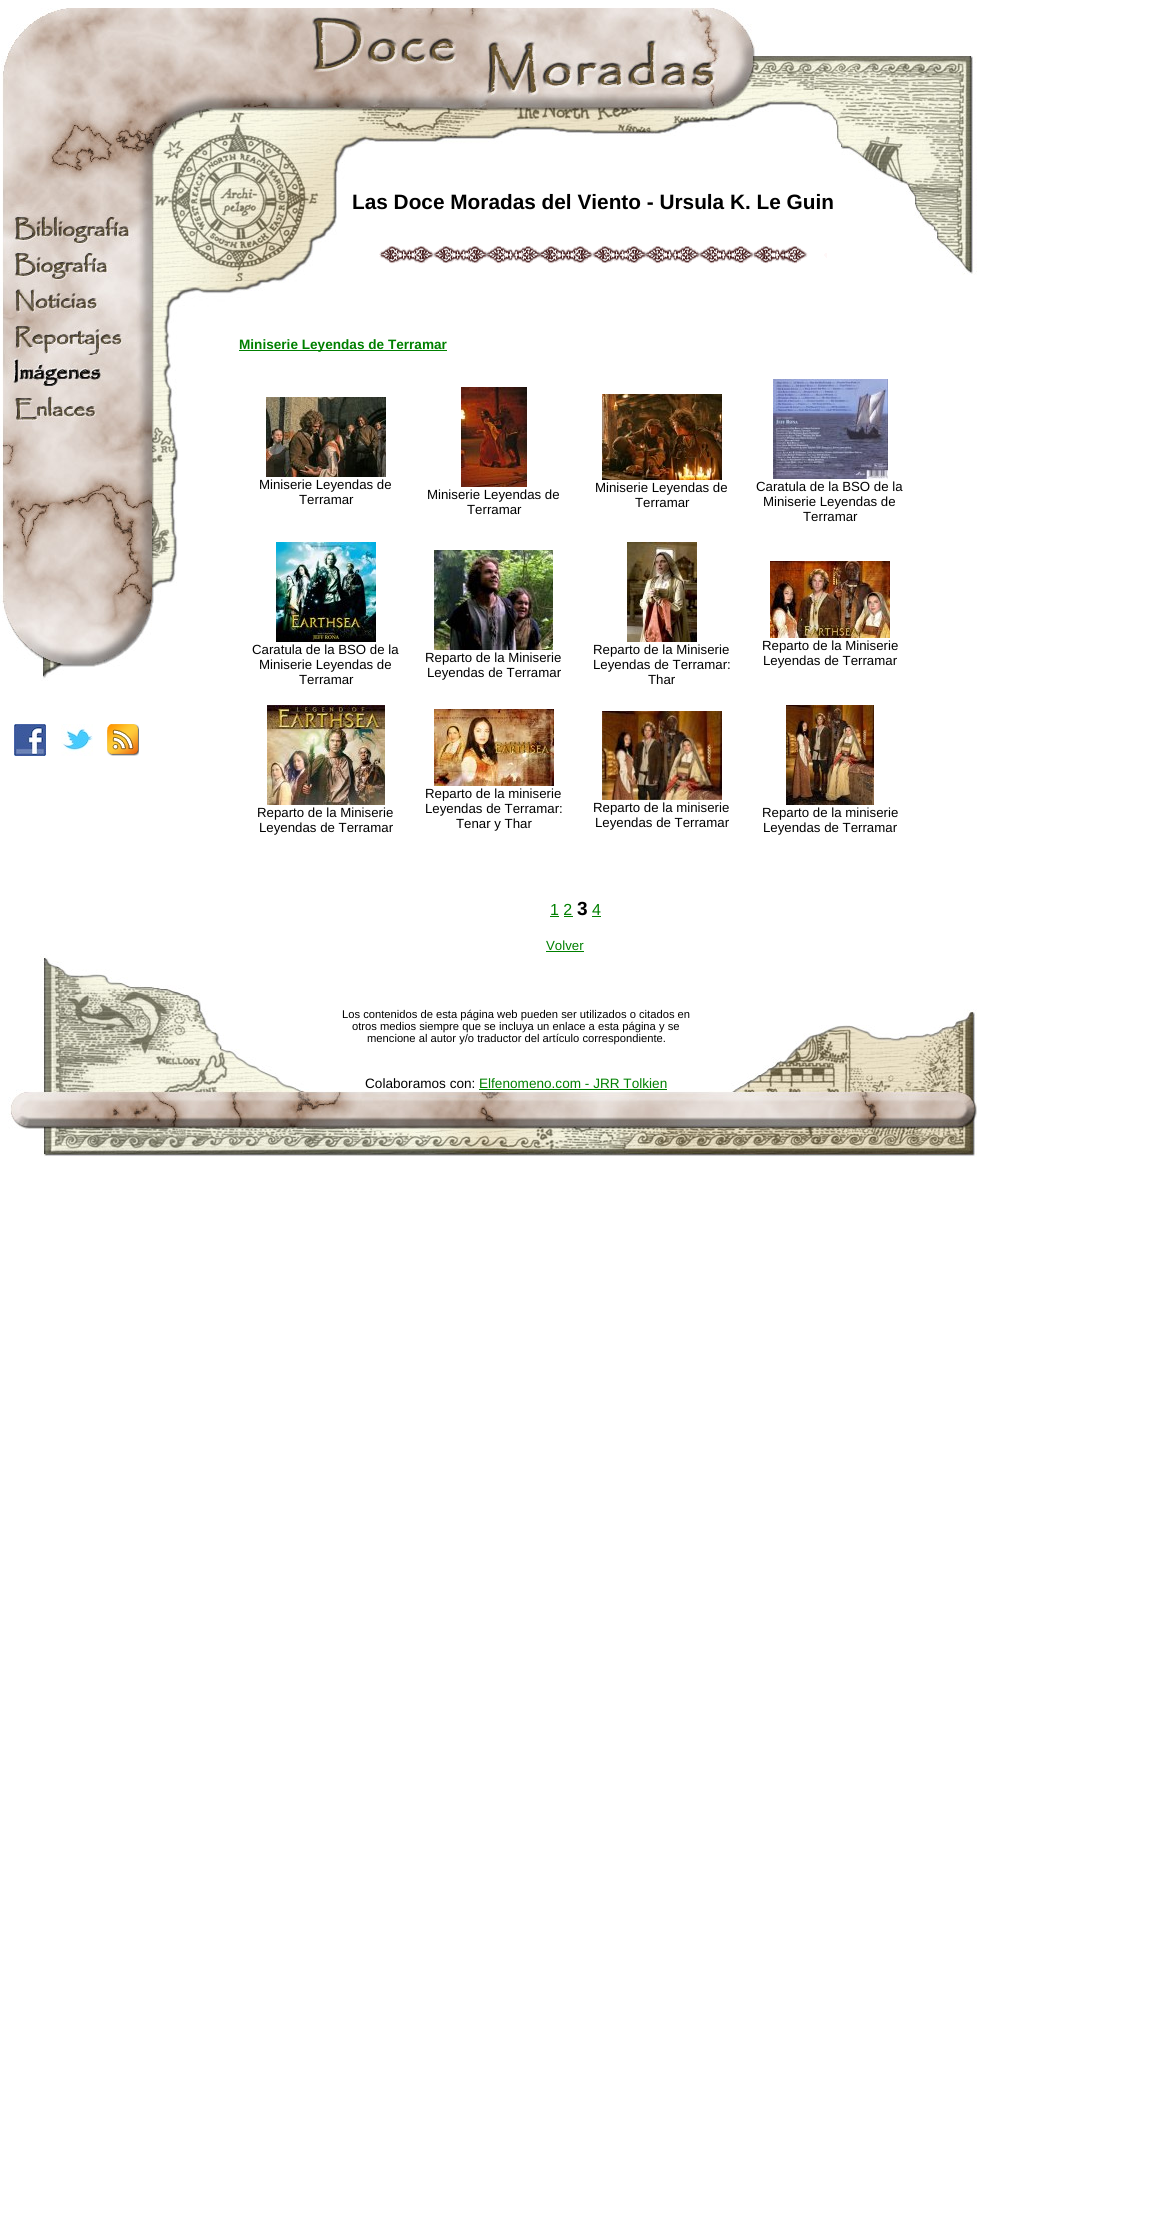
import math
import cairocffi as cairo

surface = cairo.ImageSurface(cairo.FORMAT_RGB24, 1173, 2218)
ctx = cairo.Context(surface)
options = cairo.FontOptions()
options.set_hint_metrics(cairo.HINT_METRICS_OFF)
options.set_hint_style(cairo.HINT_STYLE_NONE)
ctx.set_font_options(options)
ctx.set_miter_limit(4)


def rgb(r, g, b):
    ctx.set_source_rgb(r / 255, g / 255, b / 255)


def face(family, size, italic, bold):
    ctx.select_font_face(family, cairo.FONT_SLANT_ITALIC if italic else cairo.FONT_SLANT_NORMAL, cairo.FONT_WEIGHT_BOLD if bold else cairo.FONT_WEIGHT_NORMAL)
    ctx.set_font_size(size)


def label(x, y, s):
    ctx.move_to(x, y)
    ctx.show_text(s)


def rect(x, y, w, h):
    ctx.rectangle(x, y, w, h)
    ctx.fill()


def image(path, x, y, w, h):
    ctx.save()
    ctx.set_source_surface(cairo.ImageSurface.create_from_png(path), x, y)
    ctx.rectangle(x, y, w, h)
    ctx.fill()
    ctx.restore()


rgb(255, 255, 255)
ctx.paint()
image('image0.png', 1, 8, 975, 139)
image('image1.png', 2, 147, 151, 63)
image('image2.png', 2, 210, 151, 36)
image('image3.png', 2, 246, 151, 36)
image('image4.png', 0, 282, 153, 36)
image('image5.png', 2, 318, 151, 36)
image('image6.png', 2, 354, 151, 36)
image('image7.png', 2, 390, 151, 36)
image('image8.png', 0, 426, 153, 36)
image('image9.png', 0, 462, 153, 85)
image('image10.png', 0, 547, 153, 56)
image('image11.png', 2, 603, 151, 78)
image('image12.png', 14, 724, 32, 32)
image('image13.png', 61, 724, 32, 32)
image('image14.png', 107, 724, 32, 32)
image('image15.png', 153, 147, 199, 160)
face('Liberation Sans', 20.8, 0, 1)
rgb(0, 0, 0)
label(352, 209, 'Las Doce Moradas del Viento - Ursula K. Le Guin')
image('image16.png', 379, 246, 448, 18)
image('image17.png', 841, 147, 136, 128)
image('image18.png', 153, 307, 26, 296)
rgb(0, 128, 0)
rect(239, 350, 208, 1)
face('Liberation Sans', 13.6, 0, 1)
label(239, 349, 'Miniserie Leyendas de Terramar')
image('image19.png', 266, 397, 120, 80)
face('Liberation Sans', 13.25, 0, 0)
rgb(0, 0, 0)
label(259, 489, 'Miniserie Leyendas de')
label(299, 504, 'Terramar')
image('image20.png', 461, 387, 66, 100)
label(427, 499, 'Miniserie Leyendas de')
label(467, 514, 'Terramar')
image('image21.png', 602, 394, 120, 86)
label(595, 492, 'Miniserie Leyendas de')
label(635, 507, 'Terramar')
image('image22.png', 773, 379, 115, 100)
label(756, 491, 'Caratula de la BSO de la')
label(763, 506, 'Miniserie Leyendas de')
label(803, 521, 'Terramar')
image('image23.png', 276, 542, 100, 100)
label(252, 654, 'Caratula de la BSO de la')
label(259, 669, 'Miniserie Leyendas de')
label(299, 684, 'Terramar')
image('image24.png', 434, 550, 119, 100)
label(425, 662, 'Reparto de la Miniserie')
label(427, 677, 'Leyendas de Terramar')
image('image25.png', 627, 542, 70, 100)
label(593, 654, 'Reparto de la Miniserie')
label(593, 669, 'Leyendas de Terramar:')
label(648, 684, 'Thar')
image('image26.png', 770, 561, 120, 77)
label(762, 650, 'Reparto de la Miniserie')
label(763, 665, 'Leyendas de Terramar')
image('image27.png', 267, 705, 118, 100)
label(257, 817, 'Reparto de la Miniserie')
label(259, 832, 'Leyendas de Terramar')
image('image28.png', 434, 709, 120, 77)
label(425, 798, 'Reparto de la miniserie')
label(425, 813, 'Leyendas de Terramar:')
label(456, 828, 'Tenar y Thar')
image('image29.png', 602, 711, 120, 89)
label(593, 812, 'Reparto de la miniserie')
label(595, 827, 'Leyendas de Terramar')
image('image30.png', 786, 705, 88, 100)
label(762, 817, 'Reparto de la miniserie')
label(763, 832, 'Leyendas de Terramar')
face('Liberation Sans', 16, 0, 0)
rgb(0, 128, 0)
label(550, 915, '1 2')
rect(550, 916, 9, 1)
face('Liberation Sans', 19, 0, 1)
rgb(0, 0, 0)
label(577, 915, '3')
face('Liberation Sans', 16, 0, 0)
rgb(0, 128, 0)
label(592, 915, '4')
rect(592, 916, 9, 1)
rect(564, 916, 9, 1)
face('Liberation Sans', 13.25, 0, 0)
label(546, 950, 'Volver')
rect(546, 951, 38, 1)
image('image31.png', 8, 954, 301, 203)
face('Liberation Sans', 11.2, 0, 0)
rgb(0, 0, 0)
label(342, 1018, 'Los contenidos de esta página web pueden ser utilizados o citados en')
label(352, 1030, 'otros medios siempre que se incluya un enlace a esta página y se')
label(367, 1042, 'mencione al autor y/o traductor del artículo correspondiente.')
face('Liberation Sans', 13.6, 0, 0)
label(365, 1088, 'Colaboramos con:')
rgb(0, 128, 0)
label(479, 1088, 'Elfenomeno.com - JRR Tolkien')
rect(479, 1089, 188, 1)
image('image32.png', 723, 1009, 254, 148)
image('image33.png', 309, 1091, 414, 65)
surface.write_to_png('render.png')
